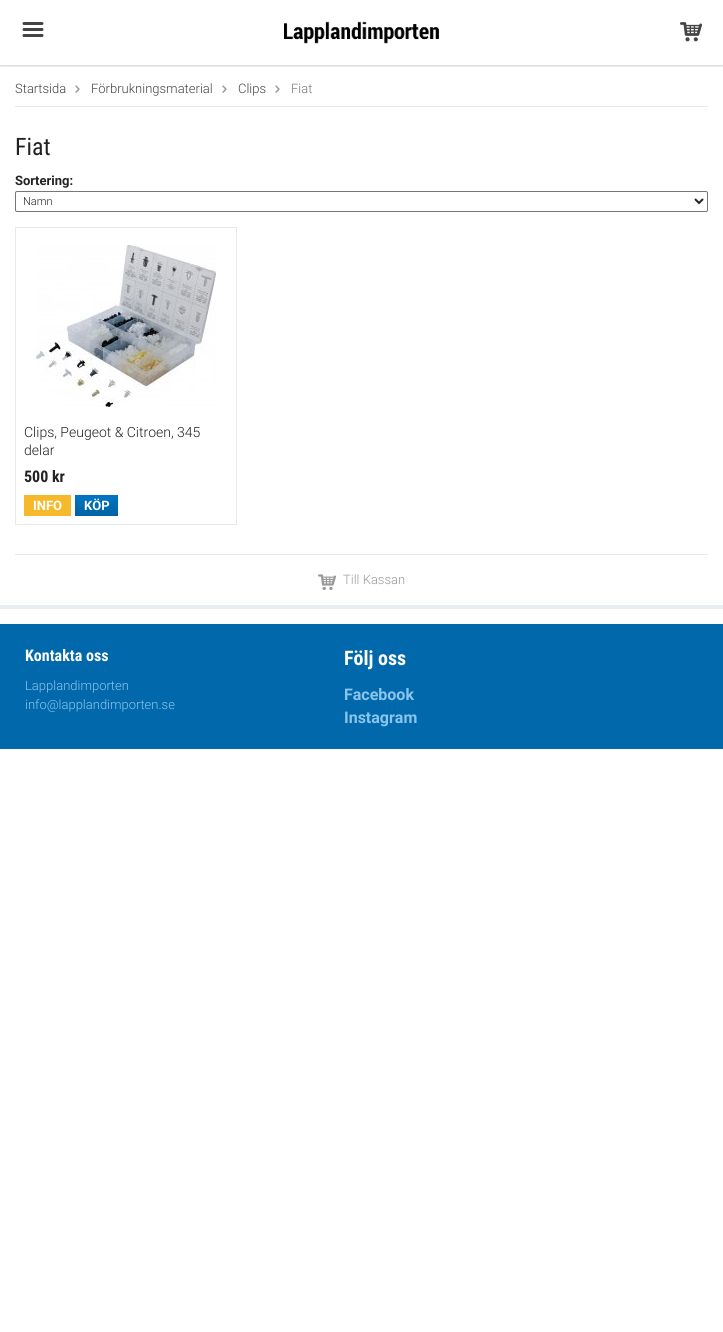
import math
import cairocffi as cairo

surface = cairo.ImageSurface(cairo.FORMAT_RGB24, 723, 1332)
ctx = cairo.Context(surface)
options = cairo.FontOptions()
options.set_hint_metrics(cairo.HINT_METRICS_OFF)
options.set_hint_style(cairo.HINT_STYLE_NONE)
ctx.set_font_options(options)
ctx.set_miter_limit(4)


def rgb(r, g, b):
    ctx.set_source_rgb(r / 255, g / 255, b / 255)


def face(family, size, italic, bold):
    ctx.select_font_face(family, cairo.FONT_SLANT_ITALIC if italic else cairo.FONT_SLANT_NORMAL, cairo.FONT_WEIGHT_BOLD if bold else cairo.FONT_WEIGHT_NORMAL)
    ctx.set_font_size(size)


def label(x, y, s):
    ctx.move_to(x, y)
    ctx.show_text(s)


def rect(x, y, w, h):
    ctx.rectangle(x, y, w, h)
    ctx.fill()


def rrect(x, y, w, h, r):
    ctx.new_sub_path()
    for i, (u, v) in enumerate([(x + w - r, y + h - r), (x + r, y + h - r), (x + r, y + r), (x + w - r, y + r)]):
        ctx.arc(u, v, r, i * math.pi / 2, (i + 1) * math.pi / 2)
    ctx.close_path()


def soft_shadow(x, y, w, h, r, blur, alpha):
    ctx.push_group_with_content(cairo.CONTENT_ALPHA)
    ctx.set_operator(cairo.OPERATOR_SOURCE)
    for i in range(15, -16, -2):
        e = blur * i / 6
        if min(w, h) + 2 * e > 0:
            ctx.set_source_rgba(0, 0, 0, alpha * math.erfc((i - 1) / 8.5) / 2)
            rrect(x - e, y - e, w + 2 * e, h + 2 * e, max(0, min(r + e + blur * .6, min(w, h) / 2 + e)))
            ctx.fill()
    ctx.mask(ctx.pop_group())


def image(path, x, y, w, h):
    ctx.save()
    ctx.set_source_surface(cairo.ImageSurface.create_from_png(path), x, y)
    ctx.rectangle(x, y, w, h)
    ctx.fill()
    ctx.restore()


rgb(255, 255, 255)
ctx.paint()
ctx.save()
ctx.rectangle(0, 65, 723, 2)
ctx.clip()
rgb(0, 0, 0)
soft_shadow(0, 1, 723, 65, 0, 1, 0.2)
ctx.restore()
image('image0.png', 22, 22, 22, 15)
image('image1.png', 284, 21, 155, 23)
image('image2.png', 680, 22, 22, 20)
rgb(231, 234, 237)
rect(15, 106, 693, 1)
face('Roboto Light', 13, 0, 0)
rgb(68, 68, 68)
label(15, 93, 'Startsida')
image('image3.png', 75, 85, 5, 8)
label(91, 93, 'Förbrukningsmaterial')
image('image3.png', 222, 85, 5, 8)
label(238, 93, 'Clips')
image('image3.png', 275, 85, 5, 8)
rgb(119, 119, 119)
label(291, 93, 'Fiat')
face('Roboto Condensed', 24, 0, 0)
rgb(34, 34, 34)
label(15, 155, 'Fiat')
face('Roboto', 13, 0, 1)
label(15, 185, 'Sortering:')
rrect(15.5, 191.5, 692, 20, 1.5)
rgb(118, 118, 118)
ctx.set_line_width(1)
ctx.stroke()
ctx.new_path()
ctx.move_to(695, 199)
ctx.line_to(699, 203)
ctx.line_to(703, 199)
rgb(34, 34, 34)
ctx.set_line_width(2)
ctx.stroke()
face('Roboto Light', 11, 0, 0)
label(23, 205, 'Namn')
ctx.rectangle(15.5, 227.5, 221, 297)
rgb(231, 234, 237)
ctx.set_line_width(1)
ctx.stroke()
image('image4.png', 36, 245, 180, 162)
face('Roboto Light', 14, 0, 0)
rgb(34, 34, 34)
label(24, 437, 'Clips, Peugeot & Citroen, 345')
label(24, 455, 'delar')
face('Roboto Condensed', 16, 0, 1)
label(24, 482, '500 kr')
rgb(245, 185, 43)
rect(24, 495, 47, 21)
face('Roboto', 13, 0, 1)
rgb(255, 255, 255)
label(33, 510, 'INFO')
rgb(0, 116, 192)
rect(75, 495, 43, 4)
image('image5.png', 75, 499, 43, 17)
rgb(255, 255, 255)
label(84, 510, 'KÖP')
rgb(231, 234, 237)
rect(15, 554, 693, 1)
image('image6.png', 318, 574, 18, 16)
face('Roboto Light', 13, 0, 0)
rgb(153, 153, 153)
label(343, 584, 'Till Kassan')
rgb(234, 237, 241)
rect(0, 605, 723, 4)
rgb(0, 104, 171)
rect(0, 624, 723, 125)
face('Roboto Condensed', 16, 0, 1)
rgb(255, 255, 255)
label(25, 661, 'Kontakta oss')
face('Roboto Light', 13, 0, 0)
rgb(139, 197, 235)
label(25, 690, 'Lapplandimporten')
label(25, 709, 'info@lapplandimporten.se')
face('Roboto Condensed', 20, 0, 1)
rgb(255, 255, 255)
label(344, 665, 'Följ oss')
face('Roboto', 16, 0, 1)
rgb(139, 197, 235)
label(344, 700, 'Facebook')
label(344, 723, 'Instagram')
surface.write_to_png('render.png')
